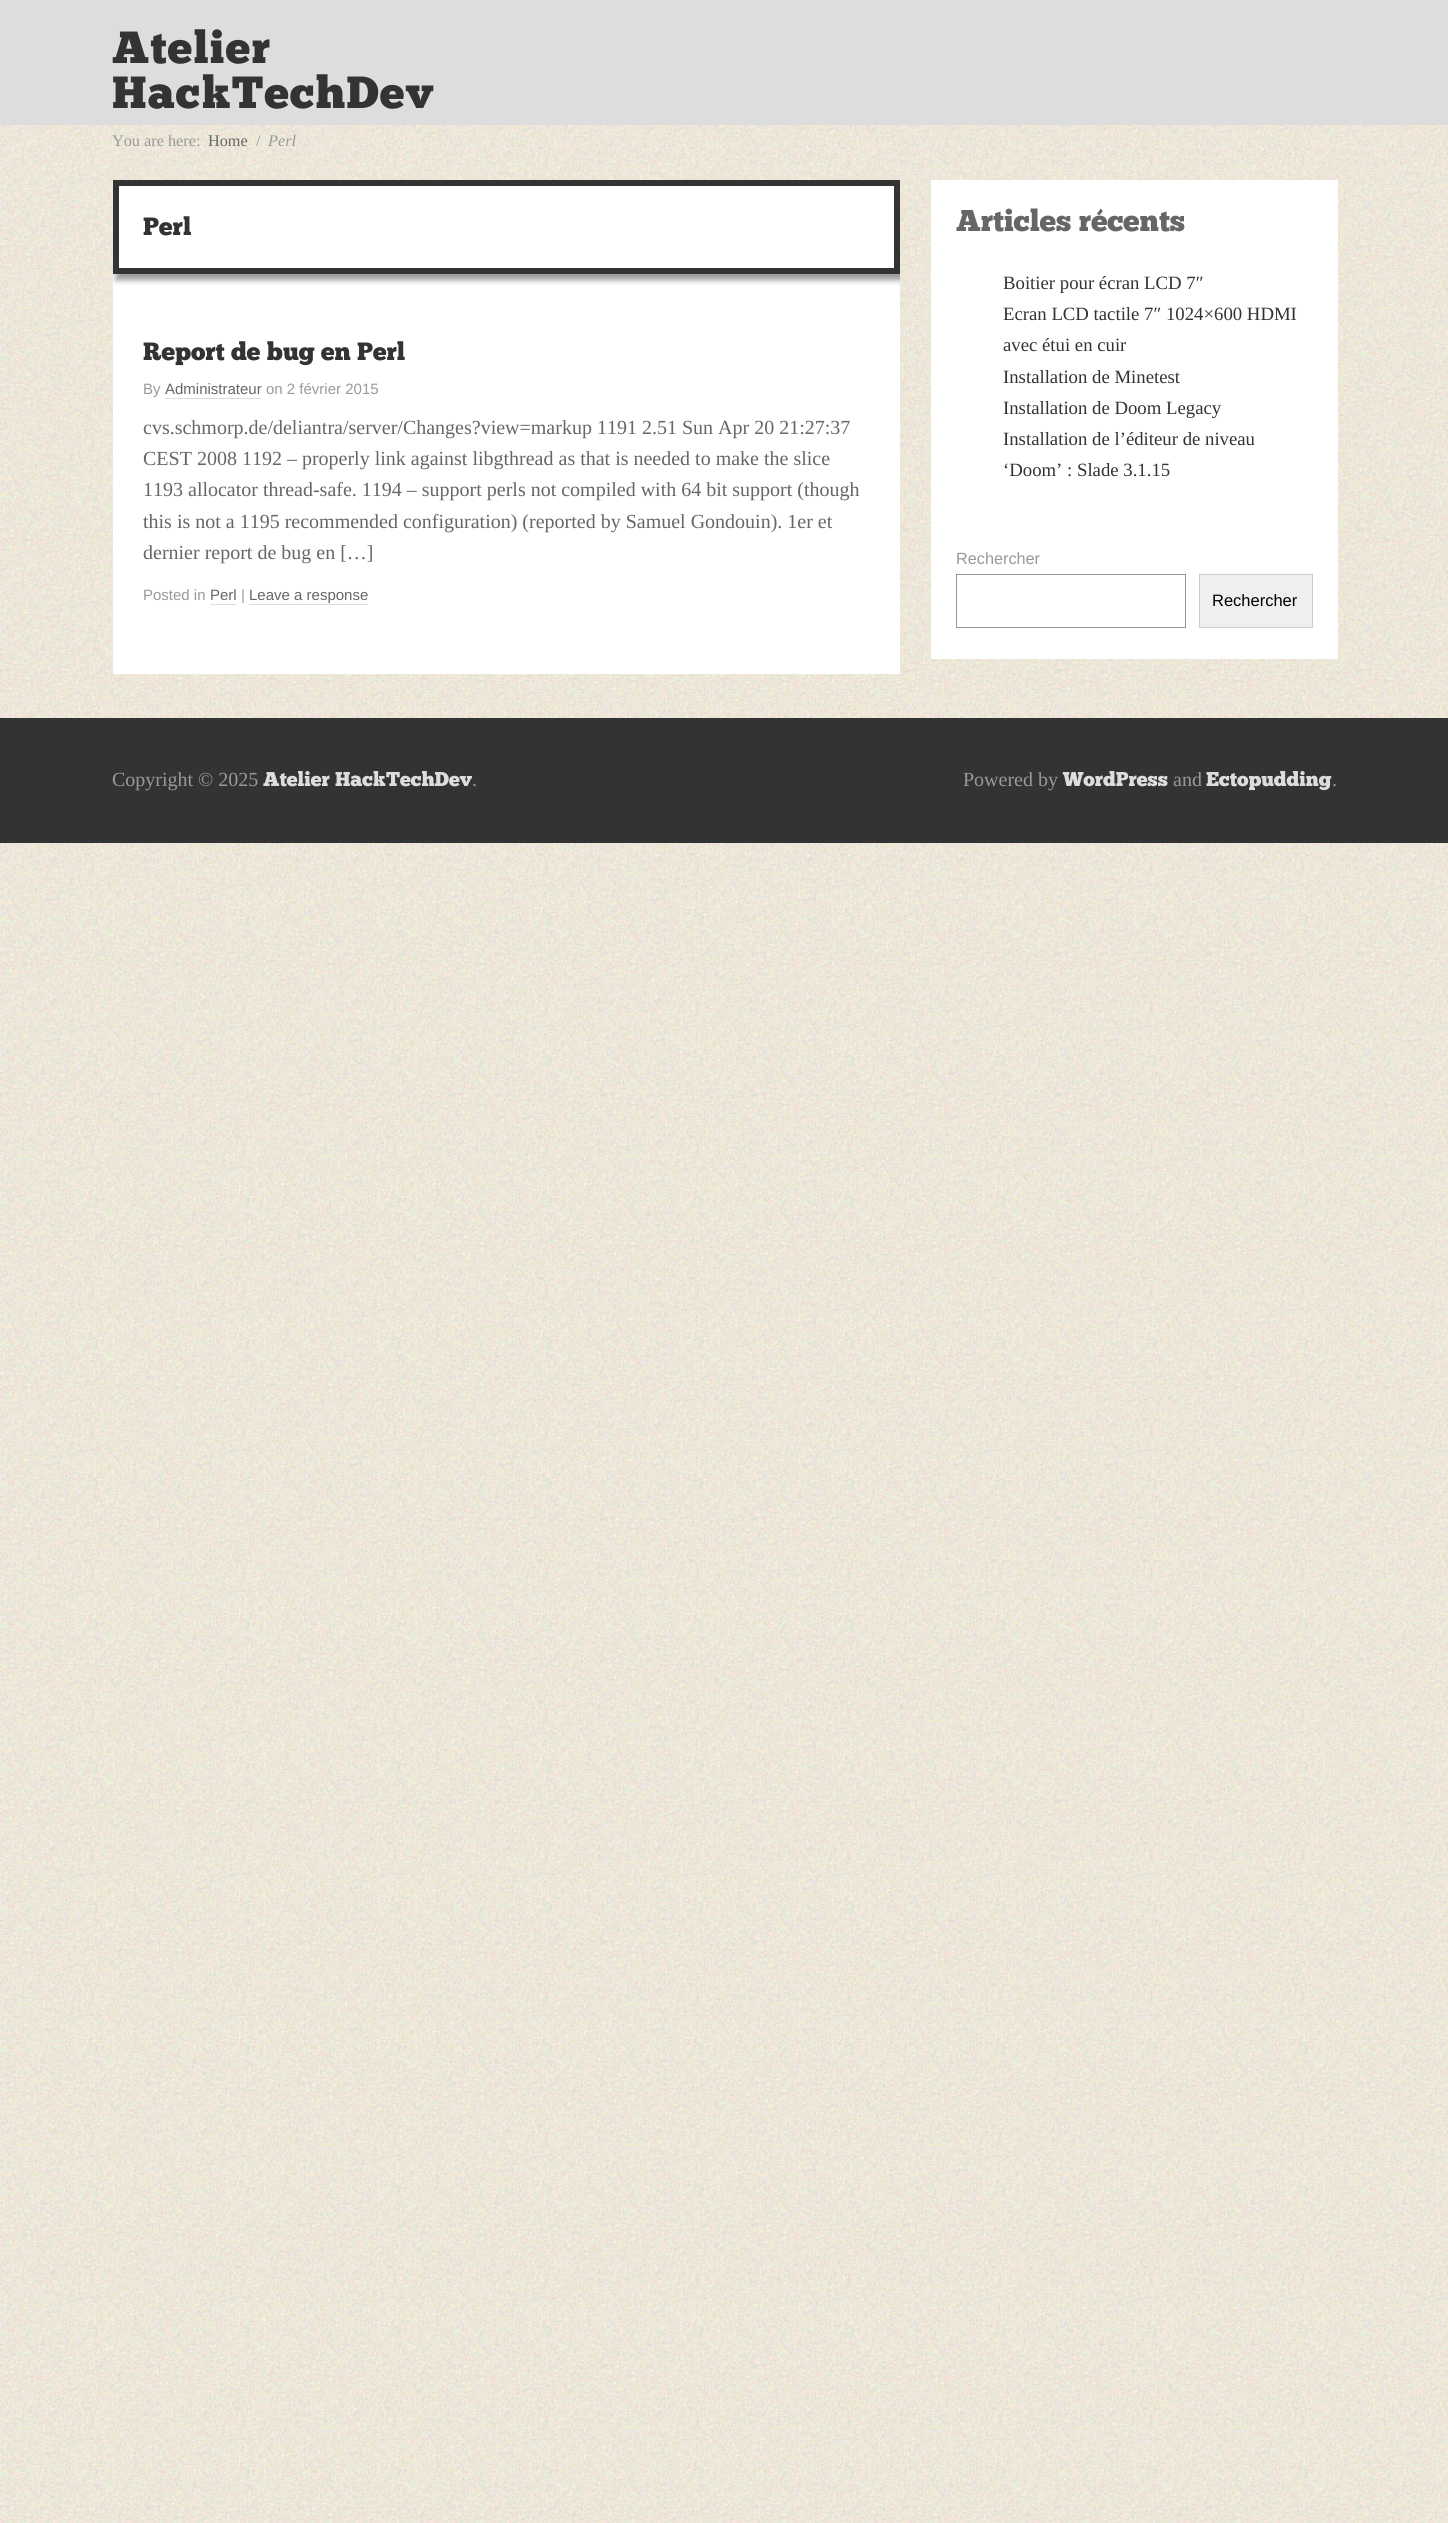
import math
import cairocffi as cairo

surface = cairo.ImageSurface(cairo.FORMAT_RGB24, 1448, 2523)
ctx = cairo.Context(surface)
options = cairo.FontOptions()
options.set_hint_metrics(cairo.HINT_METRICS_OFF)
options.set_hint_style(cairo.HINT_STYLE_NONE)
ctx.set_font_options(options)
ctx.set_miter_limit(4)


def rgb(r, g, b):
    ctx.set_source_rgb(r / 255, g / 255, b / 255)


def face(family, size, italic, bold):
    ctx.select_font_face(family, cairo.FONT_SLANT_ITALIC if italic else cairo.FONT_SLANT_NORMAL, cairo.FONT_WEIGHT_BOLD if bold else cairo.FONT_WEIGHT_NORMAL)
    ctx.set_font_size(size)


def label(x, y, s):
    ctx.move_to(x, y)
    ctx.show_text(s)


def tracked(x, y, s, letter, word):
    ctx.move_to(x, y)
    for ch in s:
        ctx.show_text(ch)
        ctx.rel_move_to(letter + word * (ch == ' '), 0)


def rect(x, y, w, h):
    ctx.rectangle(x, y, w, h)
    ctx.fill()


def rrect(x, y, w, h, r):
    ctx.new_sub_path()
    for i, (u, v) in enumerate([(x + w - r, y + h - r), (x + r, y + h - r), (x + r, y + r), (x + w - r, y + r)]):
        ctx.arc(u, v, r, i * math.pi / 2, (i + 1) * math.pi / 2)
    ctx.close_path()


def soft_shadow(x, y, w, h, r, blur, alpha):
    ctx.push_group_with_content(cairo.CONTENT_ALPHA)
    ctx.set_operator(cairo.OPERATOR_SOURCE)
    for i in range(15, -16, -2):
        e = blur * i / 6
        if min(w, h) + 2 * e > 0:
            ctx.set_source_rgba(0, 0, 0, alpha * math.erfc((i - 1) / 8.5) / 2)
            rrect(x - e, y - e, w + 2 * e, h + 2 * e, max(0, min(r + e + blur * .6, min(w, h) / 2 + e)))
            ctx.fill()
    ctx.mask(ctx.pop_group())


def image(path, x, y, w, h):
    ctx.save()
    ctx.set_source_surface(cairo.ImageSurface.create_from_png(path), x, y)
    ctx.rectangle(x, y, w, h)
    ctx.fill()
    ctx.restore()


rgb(255, 255, 255)
ctx.paint()
image('image0.png', 0, 125, 1448, 2398)
rgb(221, 221, 221)
rect(0, 0, 1448, 125)
face('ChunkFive', 45, 0, 0)
rgb(51, 51, 51)
tracked(112, 63, 'Atelier', 1.25, 0)
tracked(112, 108, 'HackTechDev', 1.25, 0)
face('Liberation Serif', 16.25, 0, 0)
rgb(153, 153, 153)
label(112, 146, 'You are here:')
rgb(102, 102, 102)
label(208, 146, 'Home')
rgb(153, 153, 153)
label(256, 146, '/')
face('Liberation Serif', 16.25, 1, 0)
label(268, 146, 'Perl')
rgb(255, 255, 255)
rect(113, 186, 787, 488)
ctx.save()
ctx.rectangle(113, 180, 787, 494)
ctx.clip()
ctx.rectangle(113, 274, 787, 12)
ctx.clip()
rgb(153, 153, 153)
soft_shadow(116, 186, 788, 94, 0, 3, 1)
ctx.restore()
ctx.rectangle(116, 183, 781, 88)
rgb(51, 51, 51)
ctx.set_line_width(6)
ctx.stroke()
face('ChunkFive', 25, 0, 0)
label(143, 235, 'Perl')
label(143, 360, 'Report de bug en Perl')
face('Liberation Sans', 15, 0, 0)
rgb(153, 153, 153)
label(143, 394, 'By')
rgb(102, 102, 102)
label(165, 394, 'Administrateur')
rgb(221, 221, 221)
rect(165, 398, 96, 1)
rgb(153, 153, 153)
label(266, 394, 'on 2 février 2015')
face('Liberation Serif', 20, 0, 0)
rgb(102, 102, 102)
label(143, 434, 'cvs.schmorp.de/deliantra/server/Changes?view=markup 1191 2.51 Sun Apr 20 21:27:37')
label(143, 465, 'CEST 2008 1192 – properly link against libgthread as that is needed to make the slice')
label(143, 496, '1193 allocator thread-safe. 1194 – support perls not compiled with 64 bit support (though')
label(143, 528, 'this is not a 1195 recommended configuration) (reported by Samuel Gondouin). 1er et')
label(143, 559, 'dernier report de bug en […]')
face('Liberation Sans', 15, 0, 0)
rgb(153, 153, 153)
label(143, 600, 'Posted in')
rgb(102, 102, 102)
label(210, 600, 'Perl')
rgb(221, 221, 221)
rect(210, 604, 26, 1)
rgb(153, 153, 153)
label(241, 600, '|')
rgb(102, 102, 102)
label(249, 600, 'Leave a response')
rgb(221, 221, 221)
rect(249, 604, 119, 1)
rgb(255, 255, 255)
rect(931, 180, 407, 479)
face('ChunkFive', 30, 0, 0)
rgb(102, 102, 102)
label(956, 231, 'Articles récents')
face('Liberation Serif', 18.75, 0, 0)
rgb(51, 51, 51)
label(1003, 289, 'Boitier pour écran LCD 7″')
label(1003, 320, 'Ecran LCD tactile 7″ 1024×600 HDMI')
label(1003, 351, 'avec étui en cuir')
label(1003, 383, 'Installation de Minetest')
label(1003, 414, 'Installation de Doom Legacy')
label(1003, 445, 'Installation de l’éditeur de niveau')
label(1003, 476, '‘Doom’ : Slade 3.1.15')
face('Liberation Sans', 16.25, 0, 0)
rgb(153, 153, 153)
label(956, 564, 'Rechercher')
ctx.rectangle(956.5, 574.5, 229, 53)
rgb(148, 148, 148)
ctx.set_line_width(1)
ctx.stroke()
rgb(239, 239, 239)
ctx.rectangle(1199.5, 574.5, 113, 53)
ctx.fill_preserve()
rgb(204, 204, 204)
ctx.stroke()
face('Liberation Sans', 16.5, 0, 0)
rgb(0, 0, 0)
label(1212, 606, 'Rechercher')
rgb(51, 51, 51)
rect(0, 718, 1448, 125)
face('Liberation Serif', 20, 0, 0)
rgb(153, 153, 153)
label(112, 786, 'Copyright © 2025')
face('ChunkFive', 20, 0, 0)
rgb(221, 221, 221)
label(263, 786, 'Atelier HackTechDev')
face('Liberation Serif', 20, 0, 0)
rgb(153, 153, 153)
label(472, 786, '.')
label(963, 786, 'Powered by')
face('ChunkFive', 20, 0, 0)
rgb(221, 221, 221)
label(1063, 786, 'WordPress')
face('Liberation Serif', 20, 0, 0)
rgb(153, 153, 153)
label(1173, 786, 'and')
face('ChunkFive', 20, 0, 0)
rgb(221, 221, 221)
label(1206, 786, 'Ectopudding')
face('Liberation Serif', 20, 0, 0)
rgb(153, 153, 153)
label(1332, 786, '.')
surface.write_to_png('render.png')
